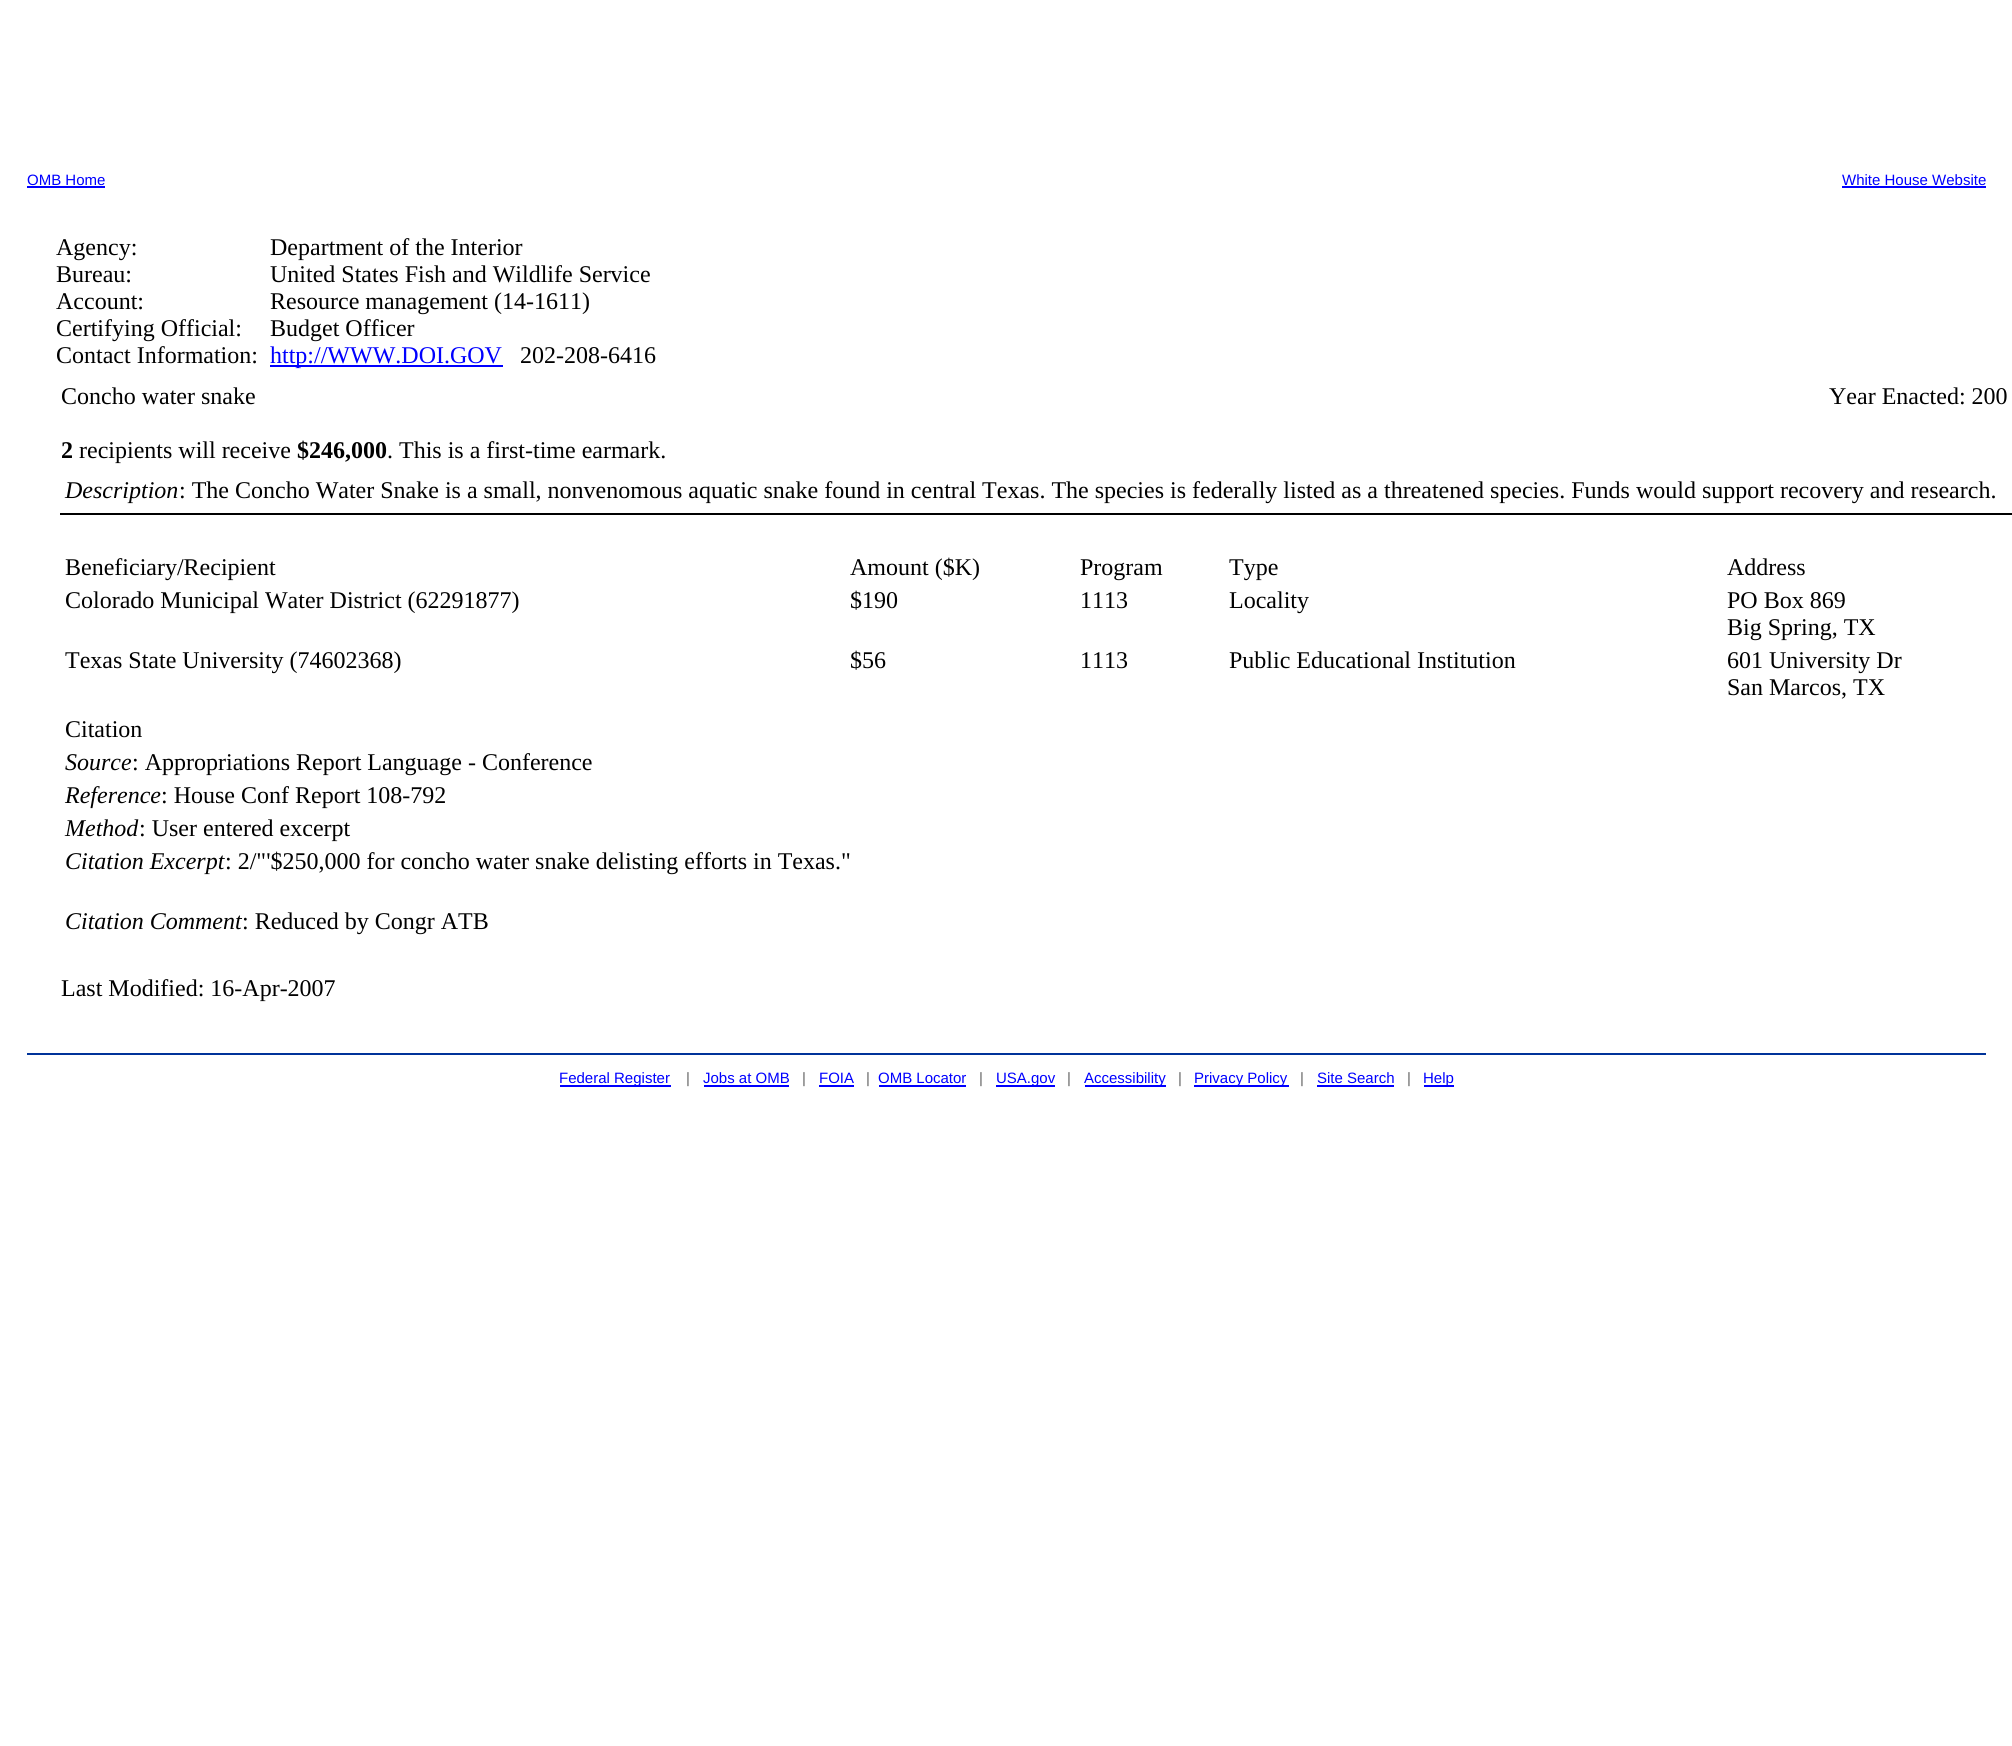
import math
import cairocffi as cairo

surface = cairo.ImageSurface(cairo.FORMAT_RGB24, 2012, 1746)
ctx = cairo.Context(surface)
options = cairo.FontOptions()
options.set_hint_metrics(cairo.HINT_METRICS_OFF)
options.set_hint_style(cairo.HINT_STYLE_NONE)
ctx.set_font_options(options)
ctx.set_miter_limit(4)


def rgb(r, g, b):
    ctx.set_source_rgb(r / 255, g / 255, b / 255)


def face(family, size, italic, bold):
    ctx.select_font_face(family, cairo.FONT_SLANT_ITALIC if italic else cairo.FONT_SLANT_NORMAL, cairo.FONT_WEIGHT_BOLD if bold else cairo.FONT_WEIGHT_NORMAL)
    ctx.set_font_size(size)


def label(x, y, s):
    ctx.move_to(x, y)
    ctx.show_text(s)


def rect(x, y, w, h):
    ctx.rectangle(x, y, w, h)
    ctx.fill()


rgb(255, 255, 255)
ctx.paint()
face('Liberation Sans', 15, 0, 0)
rgb(0, 0, 255)
label(27, 185, 'OMB Home')
rect(27, 186, 78, 2)
label(1842, 185, 'White House Website')
rect(1842, 186, 144, 2)
face('Liberation Serif', 24, 0, 0)
rgb(0, 0, 0)
label(56, 255, 'Agency:')
label(270, 255, 'Department of the Interior')
label(56, 282, 'Bureau:')
label(270, 282, 'United States Fish and Wildlife Service')
label(56, 309, 'Account:')
label(270, 309, 'Resource management (14-1611)')
label(56, 336, 'Certifying Official:')
label(270, 336, 'Budget Officer')
label(56, 363, 'Contact Information:')
rgb(0, 0, 255)
rect(270, 365, 233, 2)
label(270, 363, 'http://WWW.DOI.GOV')
rgb(0, 0, 0)
label(520, 363, '202-208-6416')
label(61, 404, 'Concho water snake')
face('Liberation Serif', 24, 0, 1)
label(61, 458, '2')
face('Liberation Serif', 24, 0, 0)
label(79, 458, 'recipients will receive')
face('Liberation Serif', 24, 0, 1)
label(297, 458, '$246,000')
face('Liberation Serif', 24, 0, 0)
label(387, 458, '. This is a first-time earmark.')
label(1829, 404, 'Year Enacted: 200')
face('Liberation Serif', 24, 1, 0)
label(65, 498, 'Description')
face('Liberation Serif', 24, 0, 0)
label(179, 498, ': The Concho Water Snake is a small, nonvenomous aquatic snake found in central Texas. The species is federally listed as a threatened species. Funds would support recovery and research.')
rect(60, 513, 1952, 2)
label(65, 575, 'Beneficiary/Recipient')
label(850, 575, 'Amount ($K)')
label(1080, 575, 'Program')
label(1229, 575, 'Type')
label(1727, 575, 'Address')
label(65, 608, 'Colorado Municipal Water District (62291877)')
label(850, 608, '$190')
label(1080, 608, '1113')
label(1229, 608, 'Locality')
label(1727, 608, 'PO Box 869')
label(1727, 635, 'Big Spring, TX')
label(65, 668, 'Texas State University (74602368)')
label(850, 668, '$56')
label(1080, 668, '1113')
label(1229, 668, 'Public Educational Institution')
label(1727, 668, '601 University Dr')
label(1727, 695, 'San Marcos, TX')
label(65, 737, 'Citation')
face('Liberation Serif', 24, 1, 0)
label(65, 770, 'Source')
face('Liberation Serif', 24, 0, 0)
label(132, 770, ': Appropriations Report Language - Conference')
face('Liberation Serif', 24, 1, 0)
label(65, 803, 'Reference')
face('Liberation Serif', 24, 0, 0)
label(161, 803, ': House Conf Report 108-792')
face('Liberation Serif', 24, 1, 0)
label(65, 836, 'Method')
face('Liberation Serif', 24, 0, 0)
label(139, 836, ': User entered excerpt')
face('Liberation Serif', 24, 1, 0)
label(65, 869, 'Citation Excerpt')
face('Liberation Serif', 24, 0, 0)
label(225, 869, ': 2/"\'$250,000 for concho water snake delisting efforts in Texas."')
face('Liberation Serif', 24, 1, 0)
label(65, 929, 'Citation Comment')
face('Liberation Serif', 24, 0, 0)
label(242, 929, ': Reduced by Congr ATB')
label(61, 996, 'Last Modified: 16-Apr-2007')
rgb(0, 51, 153)
rect(27, 1053, 1959, 2)
rgb(0, 0, 255)
rect(560, 1085, 111, 2)
face('Liberation Sans', 15, 0, 0)
label(559, 1083, 'Federal Register')
rgb(102, 102, 102)
label(686, 1083, '|')
rgb(0, 0, 255)
label(703, 1083, 'Jobs at OMB')
rect(704, 1085, 85, 2)
rgb(102, 102, 102)
label(802, 1083, '|')
rgb(0, 0, 255)
label(819, 1083, 'FOIA')
rect(819, 1085, 35, 2)
rgb(102, 102, 102)
label(866, 1083, '|')
rgb(0, 0, 255)
label(878, 1083, 'OMB Locator')
rect(879, 1085, 87, 2)
rgb(102, 102, 102)
label(979, 1083, '|')
rgb(0, 0, 255)
rect(996, 1085, 59, 2)
label(996, 1083, 'USA.gov')
rgb(102, 102, 102)
label(1067, 1083, '|')
rgb(0, 0, 255)
rect(1085, 1085, 81, 2)
label(1084, 1083, 'Accessibility')
rgb(102, 102, 102)
label(1178, 1083, '|')
rgb(0, 0, 255)
rect(1194, 1085, 95, 2)
label(1194, 1083, 'Privacy Policy')
rgb(102, 102, 102)
label(1300, 1083, '|')
rgb(0, 0, 255)
label(1317, 1083, 'Site Search')
rect(1317, 1085, 77, 2)
rgb(102, 102, 102)
label(1407, 1083, '|')
rgb(0, 0, 255)
rect(1424, 1085, 30, 2)
label(1423, 1083, 'Help')
surface.write_to_png('render.png')
